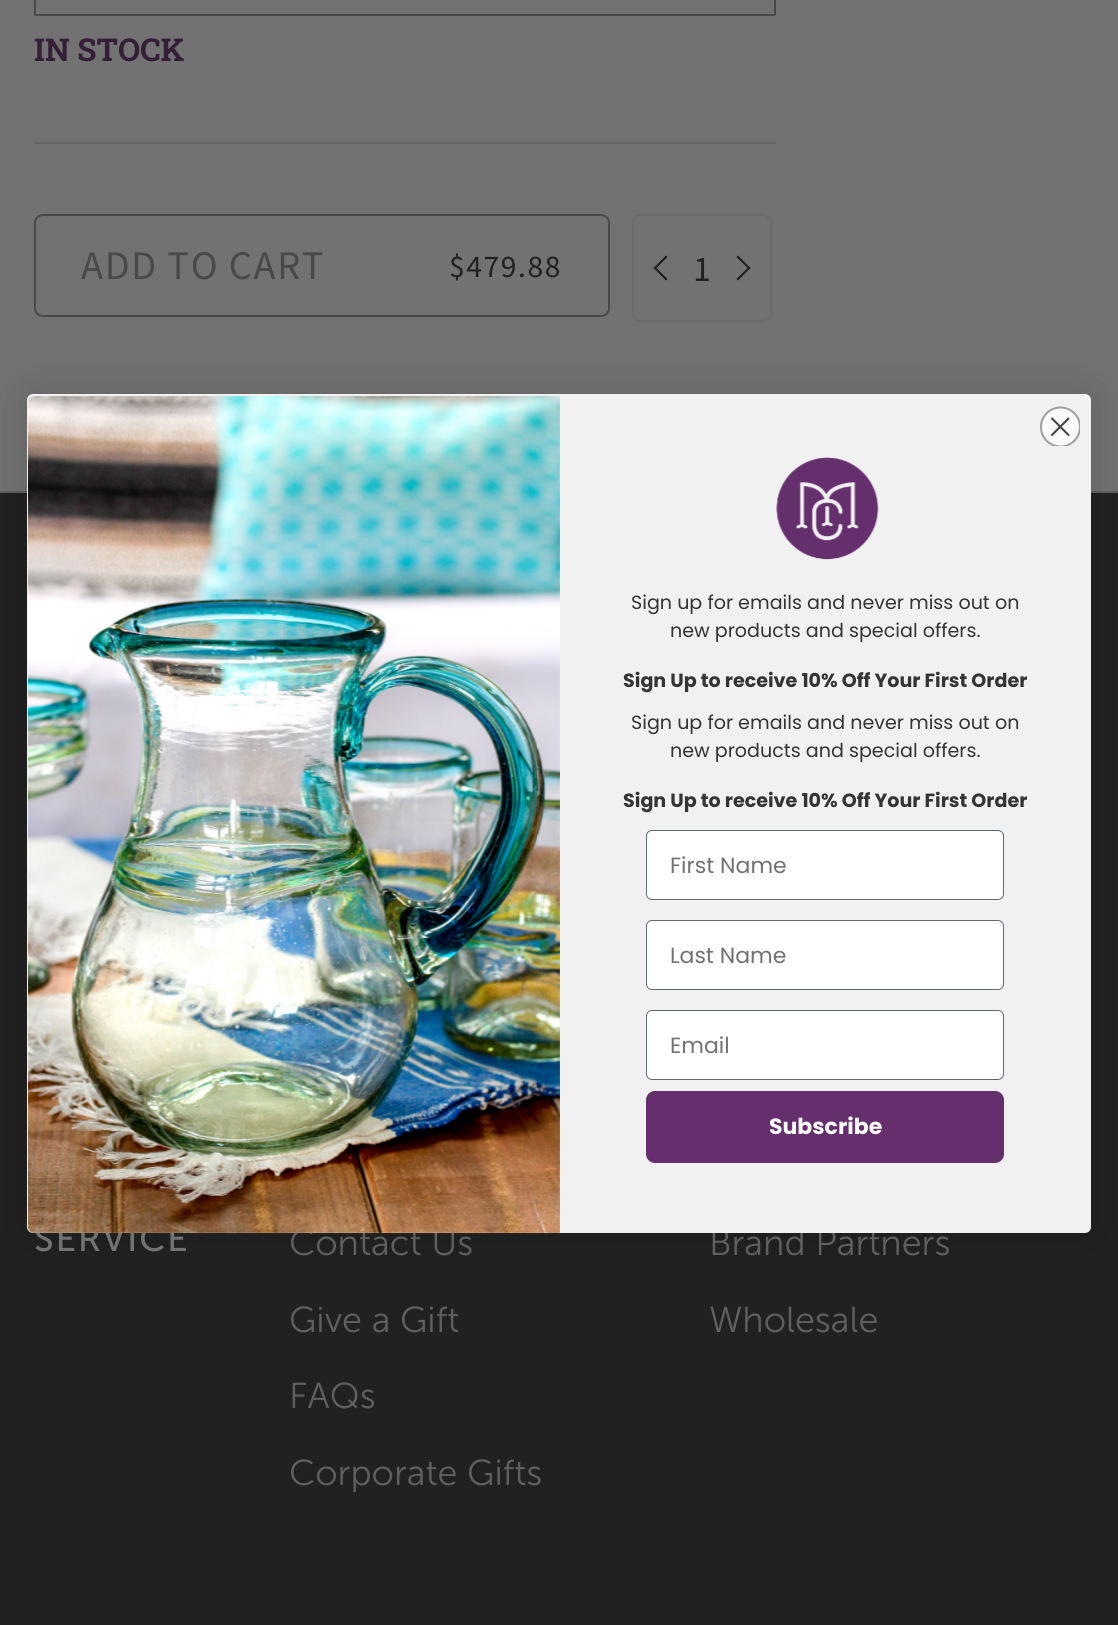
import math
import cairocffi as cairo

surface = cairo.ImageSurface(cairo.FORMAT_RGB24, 1118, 1625)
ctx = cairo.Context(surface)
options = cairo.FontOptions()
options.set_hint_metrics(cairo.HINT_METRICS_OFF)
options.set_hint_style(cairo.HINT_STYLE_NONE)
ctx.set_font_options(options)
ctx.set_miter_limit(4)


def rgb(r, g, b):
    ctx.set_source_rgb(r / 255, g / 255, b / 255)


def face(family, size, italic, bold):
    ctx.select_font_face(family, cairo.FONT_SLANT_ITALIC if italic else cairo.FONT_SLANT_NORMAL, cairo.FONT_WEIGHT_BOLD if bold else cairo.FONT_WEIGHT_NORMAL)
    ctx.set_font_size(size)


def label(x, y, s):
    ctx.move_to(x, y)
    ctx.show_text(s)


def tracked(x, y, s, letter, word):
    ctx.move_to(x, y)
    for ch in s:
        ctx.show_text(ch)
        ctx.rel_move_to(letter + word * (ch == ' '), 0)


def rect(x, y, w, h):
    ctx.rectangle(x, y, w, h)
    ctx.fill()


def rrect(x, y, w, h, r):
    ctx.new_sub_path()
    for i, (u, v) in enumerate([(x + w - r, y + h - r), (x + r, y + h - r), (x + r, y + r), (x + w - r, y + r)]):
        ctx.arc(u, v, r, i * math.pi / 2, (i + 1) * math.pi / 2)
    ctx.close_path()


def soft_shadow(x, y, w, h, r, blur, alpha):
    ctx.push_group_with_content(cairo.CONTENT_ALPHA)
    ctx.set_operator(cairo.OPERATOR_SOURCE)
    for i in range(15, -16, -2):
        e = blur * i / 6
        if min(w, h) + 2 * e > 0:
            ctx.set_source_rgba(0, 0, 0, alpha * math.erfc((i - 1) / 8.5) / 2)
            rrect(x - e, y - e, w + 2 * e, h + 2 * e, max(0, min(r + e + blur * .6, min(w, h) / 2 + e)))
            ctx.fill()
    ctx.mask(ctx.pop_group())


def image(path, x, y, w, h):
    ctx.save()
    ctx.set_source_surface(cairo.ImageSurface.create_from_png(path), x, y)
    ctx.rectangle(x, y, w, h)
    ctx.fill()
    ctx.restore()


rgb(114, 114, 114)
ctx.paint()
rrect(35, -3, 740, 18, 1)
rgb(72, 73, 74)
ctx.stroke()
face('Roboto Slab', 31.5, 0, 1)
rgb(52, 31, 55)
label(34, 61, 'IN STOCK')
rgb(100, 100, 100)
rect(34, 142, 742, 2)
rrect(35, 215, 574, 101, 8)
rgb(73, 73, 74)
ctx.stroke()
face('Source Sans Pro', 40.5, 0, 0)
tracked(81, 279, 'ADD TO CART', 1.6, 0)
face('Source Sans Pro', 31.5, 0, 0)
rgb(33, 33, 33)
tracked(449, 277, '$479.88', 1.6, 0)
rrect(633, 215, 138, 106, 8)
rgb(107, 107, 107)
ctx.stroke()
rgb(32, 32, 32)
ctx.new_path()
ctx.move_to(655, 266.5)
ctx.line_to(667.5, 279)
ctx.line_to(666, 280.5)
ctx.line_to(653.5, 268)
ctx.close_path()
ctx.fill()
ctx.new_path()
ctx.move_to(666, 255.5)
ctx.line_to(667.5, 257)
ctx.line_to(655, 269.5)
ctx.line_to(653.5, 268)
ctx.close_path()
ctx.fill()
face('Source Sans Pro', 36, 0, 0)
rgb(33, 33, 33)
label(693, 281, '1')
rgb(32, 32, 32)
ctx.new_path()
ctx.move_to(738, 255.5)
ctx.line_to(750.5, 268)
ctx.line_to(749, 269.5)
ctx.line_to(736.5, 257)
ctx.close_path()
ctx.fill()
ctx.new_path()
ctx.move_to(749, 266.5)
ctx.line_to(750.5, 268)
ctx.line_to(738, 280.5)
ctx.line_to(736.5, 279)
ctx.close_path()
ctx.fill()
rgb(33, 33, 33)
rect(0, 493, 1118, 1132)
rgb(94, 94, 94)
rect(0, 491, 1118, 2)
rgb(0, 0, 0)
soft_shadow(27, 394, 1064, 839, 6, 20.5, 0.15)
face('Museo Sans', 36, 0, 0)
rgb(114, 114, 114)
tracked(34, 1251, 'SERVICE', 1.75, 0)
face('Museo Sans Light', 36, 0, 0)
rgb(95, 95, 95)
label(289, 1255, 'Contact Us')
label(709, 1255, 'Brand Partners')
rgb(241, 241, 241)
rrect(27, 394, 1064, 839, 6)
ctx.fill()
ctx.save()
ctx.rectangle(1040, 405, 40, 41)
ctx.clip()
rgb(250, 250, 250)
ctx.arc(1060.5, 427, 19.5, 0, 2 * math.pi)
ctx.fill_preserve()
rgb(159, 158, 159)
ctx.stroke()
ctx.restore()
ctx.new_path()
ctx.move_to(1052, 418.5)
ctx.line_to(1068.5, 435)
ctx.move_to(1052, 435)
ctx.line_to(1068.5, 418.5)
ctx.close_path()
rgb(63, 64, 64)
ctx.set_line_cap(cairo.LINE_CAP_ROUND)
ctx.set_line_join(cairo.LINE_JOIN_ROUND)
ctx.stroke()
image('image0.png', 28, 396, 532, 838)
image('image1.png', 776, 457, 103, 103)
face('Poppins', 19.1, 0, 0)
rgb(52, 52, 52)
label(631, 609, 'Sign up for emails and never miss out on')
label(670, 637, 'new products and special offers.')
face('Poppins', 19.1, 0, 1)
label(623, 687, 'Sign Up to receive 10% Off Your First Order')
face('Poppins', 19.1, 0, 0)
label(631, 729, 'Sign up for emails and never miss out on')
label(670, 757, 'new products and special offers.')
face('Poppins', 19.1, 0, 1)
label(623, 807, 'Sign Up to receive 10% Off Your First Order')
rgb(255, 255, 255)
rrect(646.5, 830.5, 357, 69, 5.5)
ctx.fill_preserve()
rgb(96, 106, 114)
ctx.set_line_width(1)
ctx.set_line_cap(cairo.LINE_CAP_BUTT)
ctx.set_line_join(cairo.LINE_JOIN_MITER)
ctx.stroke()
face('Poppins', 22, 0, 0)
rgb(114, 114, 114)
label(670, 873, 'First Name')
rgb(255, 255, 255)
rrect(646.5, 920.5, 357, 69, 5.5)
ctx.fill_preserve()
rgb(96, 106, 114)
ctx.stroke()
rgb(114, 114, 114)
label(670, 963, 'Last Name')
rgb(255, 255, 255)
rrect(646.5, 1010.5, 357, 69, 5.5)
ctx.fill_preserve()
rgb(96, 106, 114)
ctx.stroke()
rgb(114, 114, 114)
label(670, 1053, 'Email')
rgb(100, 47, 108)
rrect(646, 1091, 358, 72, 9)
ctx.fill()
face('Poppins', 22, 0, 1)
rgb(255, 255, 255)
label(769, 1134, 'Subscribe')
face('Museo Sans Light', 36, 0, 0)
rgb(95, 95, 95)
label(289, 1332, 'Give a Gift')
label(289, 1408, 'FAQs')
label(289, 1485, 'Corporate Gifts')
label(709, 1332, 'Wholesale')
surface.write_to_png('render.png')
